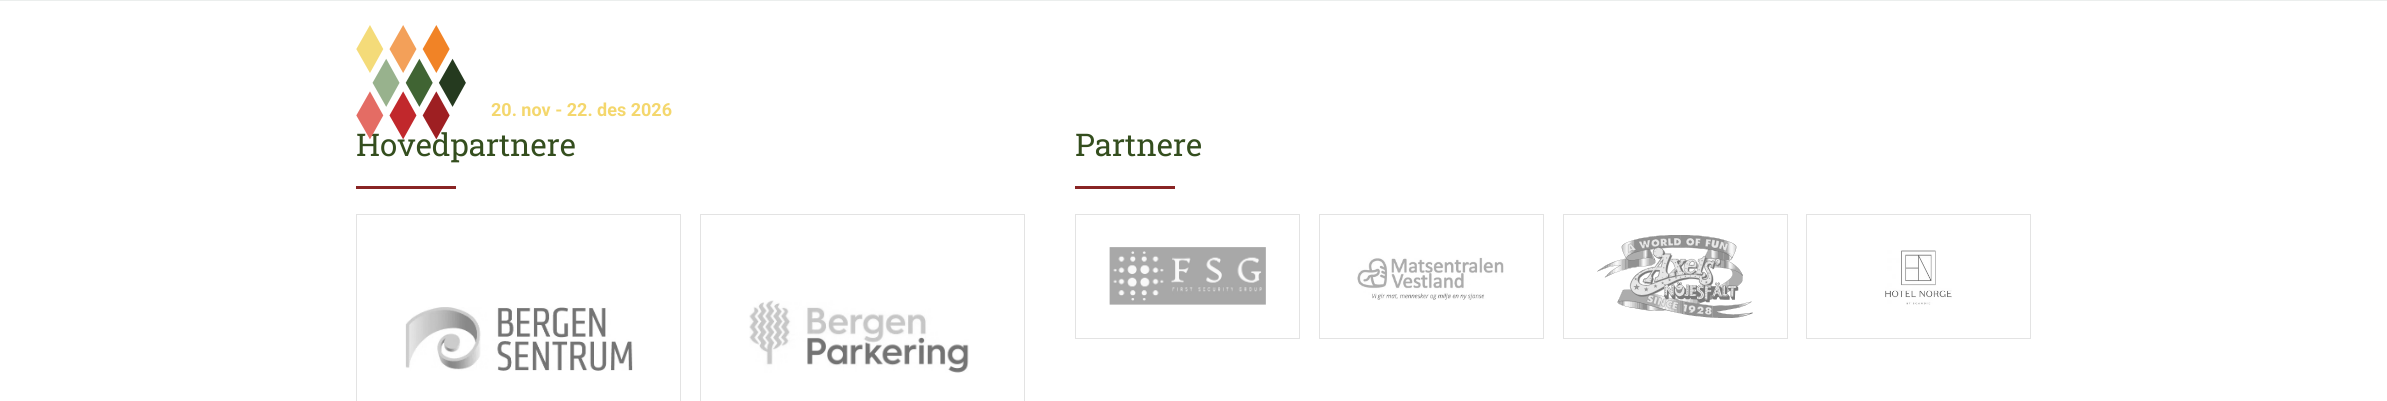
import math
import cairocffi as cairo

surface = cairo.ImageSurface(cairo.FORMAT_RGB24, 2387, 401)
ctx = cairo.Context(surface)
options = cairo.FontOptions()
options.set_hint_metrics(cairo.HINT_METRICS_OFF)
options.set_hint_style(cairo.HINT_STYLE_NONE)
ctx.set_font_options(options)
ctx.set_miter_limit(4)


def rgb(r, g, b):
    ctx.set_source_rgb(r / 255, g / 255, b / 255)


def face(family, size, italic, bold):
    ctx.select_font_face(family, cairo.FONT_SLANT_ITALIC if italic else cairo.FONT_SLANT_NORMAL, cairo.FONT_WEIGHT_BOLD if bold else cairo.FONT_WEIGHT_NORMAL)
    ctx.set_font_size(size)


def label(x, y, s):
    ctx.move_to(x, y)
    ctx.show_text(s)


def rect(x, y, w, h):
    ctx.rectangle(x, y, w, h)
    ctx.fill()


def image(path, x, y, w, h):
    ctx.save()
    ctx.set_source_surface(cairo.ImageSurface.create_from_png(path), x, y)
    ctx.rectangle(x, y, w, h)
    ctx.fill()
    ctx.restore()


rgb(255, 255, 255)
ctx.paint()
face('Roboto Slab', 31.25, 0, 0)
rgb(52, 78, 30)
label(356, 156, 'Hovedpartnere')
image('image0.png', 356, 25, 110, 115)
face('Roboto', 18, 0, 1)
rgb(244, 215, 109)
label(491, 116, '20. nov - 22. des 2026')
rgb(235, 238, 237)
rect(0, 0, 2387, 1)
rgb(137, 36, 36)
rect(356, 186, 100, 3)
ctx.rectangle(356.5, 214.5, 324, 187)
rgb(227, 227, 227)
ctx.set_line_width(1)
ctx.stroke()
image('image1.png', 405, 307, 228, 64)
ctx.rectangle(700.5, 214.5, 324, 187)
ctx.stroke()
image('image2.png', 749, 300, 220, 73)
face('Roboto Slab', 31.25, 0, 0)
rgb(52, 78, 30)
label(1075, 156, 'Partnere')
rgb(137, 36, 36)
rect(1075, 186, 100, 3)
ctx.rectangle(1075.5, 214.5, 224, 124)
rgb(227, 227, 227)
ctx.stroke()
image('image3.png', 1109, 247, 157, 58)
ctx.rectangle(1319.5, 214.5, 224, 124)
ctx.stroke()
image('image4.png', 1357, 257, 147, 43)
ctx.rectangle(1563.5, 214.5, 224, 124)
ctx.stroke()
image('image5.png', 1597, 235, 156, 83)
ctx.rectangle(1806.5, 214.5, 224, 124)
ctx.stroke()
image('image6.png', 1885, 250, 67, 55)
surface.write_to_png('render.png')
